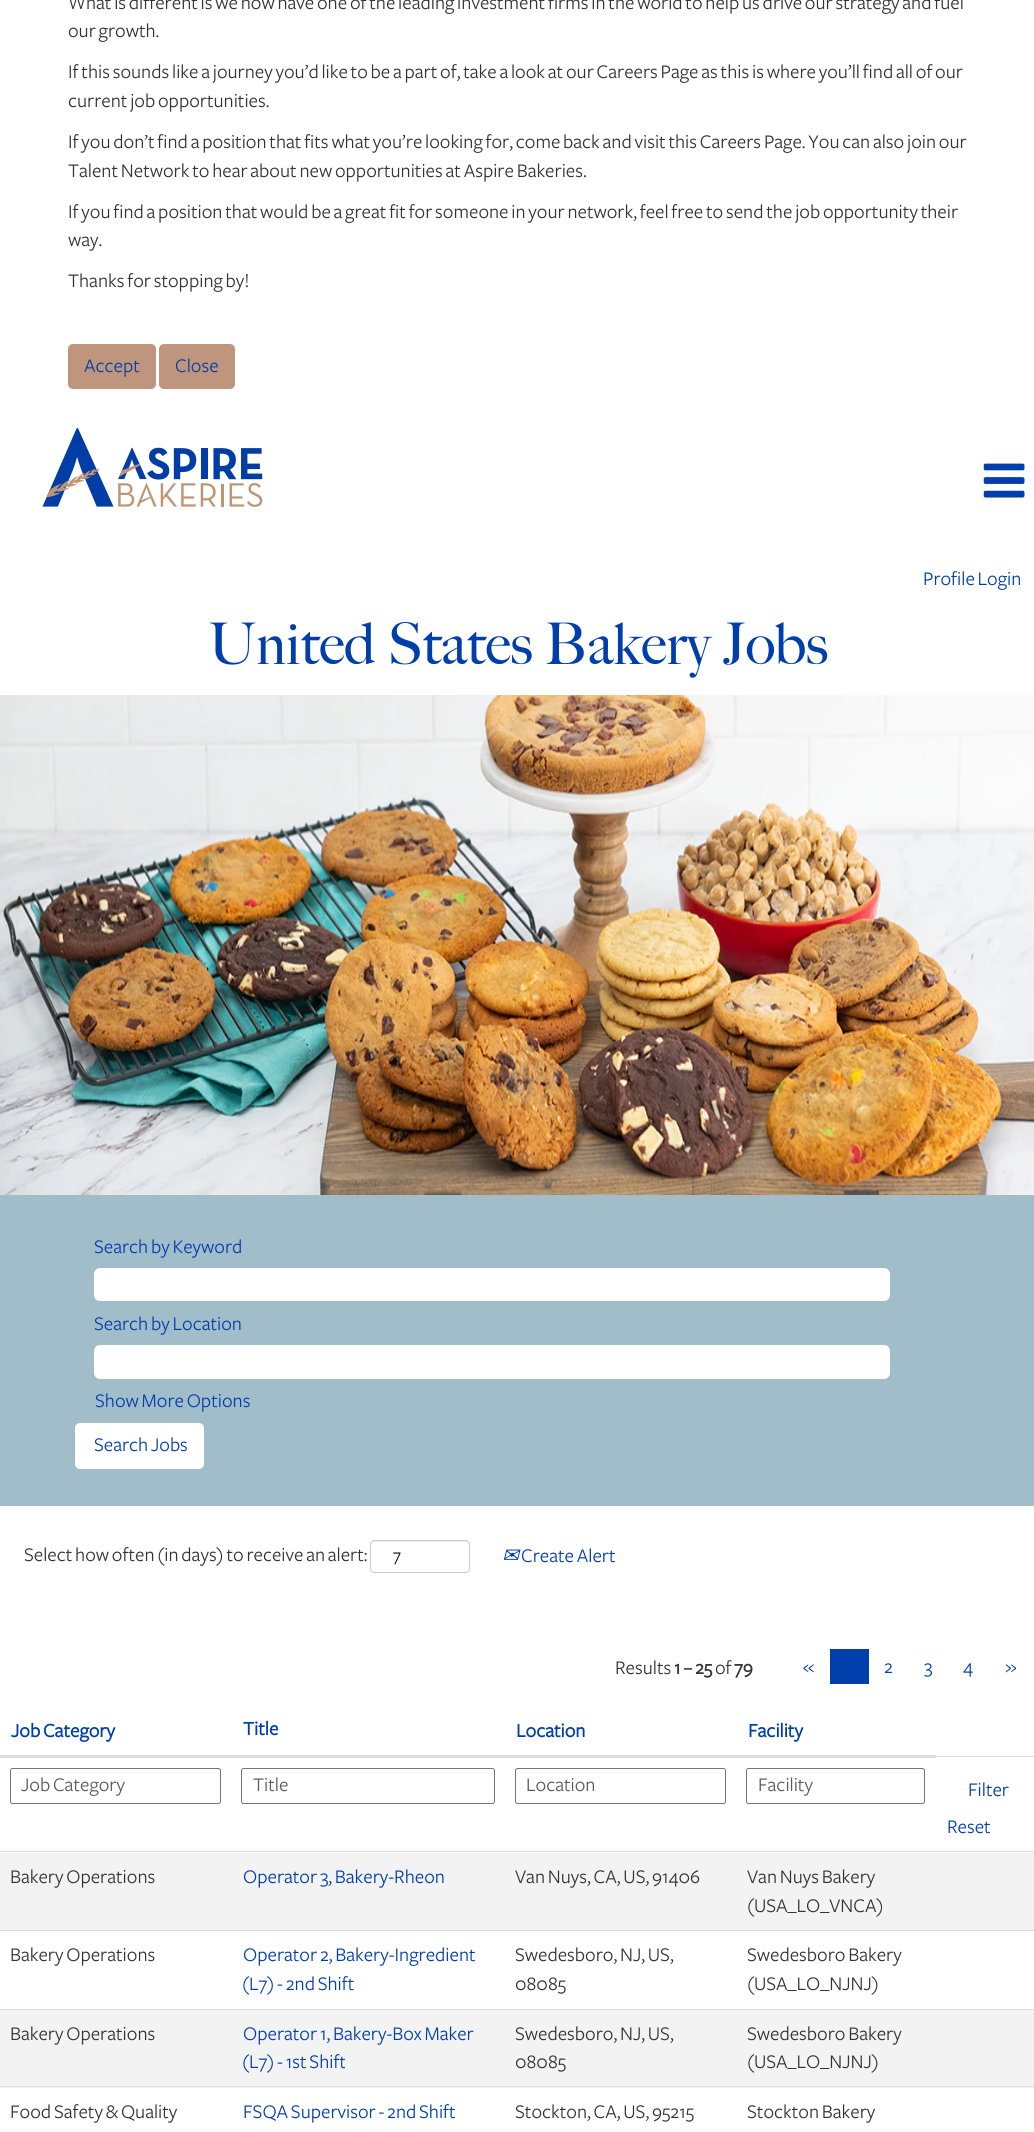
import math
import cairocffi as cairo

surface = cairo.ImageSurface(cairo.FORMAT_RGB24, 1034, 2132)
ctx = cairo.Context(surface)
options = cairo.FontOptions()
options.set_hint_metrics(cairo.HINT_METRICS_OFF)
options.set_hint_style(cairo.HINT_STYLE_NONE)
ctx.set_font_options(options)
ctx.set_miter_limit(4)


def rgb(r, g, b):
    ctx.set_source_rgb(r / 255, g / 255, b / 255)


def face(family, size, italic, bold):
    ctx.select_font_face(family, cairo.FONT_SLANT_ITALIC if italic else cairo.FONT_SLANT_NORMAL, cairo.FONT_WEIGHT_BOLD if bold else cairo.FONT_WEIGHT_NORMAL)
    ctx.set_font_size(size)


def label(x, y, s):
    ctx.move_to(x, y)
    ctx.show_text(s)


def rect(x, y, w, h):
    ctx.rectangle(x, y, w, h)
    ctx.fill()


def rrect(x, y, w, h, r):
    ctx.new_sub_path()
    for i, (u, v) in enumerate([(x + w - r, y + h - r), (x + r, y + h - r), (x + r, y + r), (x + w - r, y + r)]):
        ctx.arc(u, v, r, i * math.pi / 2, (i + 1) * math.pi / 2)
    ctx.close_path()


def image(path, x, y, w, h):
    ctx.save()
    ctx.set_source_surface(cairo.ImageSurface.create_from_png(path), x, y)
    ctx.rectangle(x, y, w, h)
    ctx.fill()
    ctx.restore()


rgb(255, 255, 255)
ctx.paint()
face('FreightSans', 20, 0, 0)
rgb(51, 51, 51)
label(68, 9, 'What is different is we now have one of the leading investment firms in the world to help us drive our strategy and fuel')
label(68, 37, 'our growth.')
label(68, 78, 'If this sounds like a journey you’d like to be a part of, take a look at our Careers Page as this is where you’ll find all of our')
label(68, 107, 'current job opportunities.')
label(68, 148, 'If you don’t find a position that fits what you’re looking for, come back and visit this Careers Page. You can also join our')
label(68, 177, 'Talent Network to hear about new opportunities at Aspire Bakeries.')
label(68, 218, 'If you find a position that would be a great fit for someone in your network, feel free to send the job opportunity their')
label(68, 246, 'way.')
label(68, 287, 'Thanks for stopping by!')
rgb(192, 149, 126)
rrect(68, 344, 88, 45, 5)
ctx.fill()
rgb(0, 62, 171)
label(84, 372, 'Accept')
rgb(192, 149, 126)
rrect(159, 344, 76, 45, 5)
ctx.fill()
rgb(0, 62, 171)
label(175, 372, 'Close')
image('image0.png', 42, 428, 221, 79)
image('image1.png', 983, 463, 42, 35)
label(923, 585, 'Profile Login')
face('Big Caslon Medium', 57.5, 0, 0)
label(208, 664, 'United States Bakery Jobs')
image('image2.png', 0, 695, 1034, 500)
rgb(162, 189, 202)
rect(0, 1195, 1034, 311)
face('FreightSans', 20, 0, 0)
rgb(0, 62, 171)
label(94, 1253, 'Search by Keyword')
rgb(255, 255, 255)
rrect(94, 1268, 796, 33, 6)
ctx.fill()
rgb(0, 62, 171)
label(94, 1330, 'Search by Location')
rgb(255, 255, 255)
rrect(94, 1345, 796, 34, 6)
ctx.fill()
rgb(0, 62, 171)
label(95, 1407, 'Show More Options')
rgb(255, 255, 255)
rrect(75, 1423, 129, 46, 5)
ctx.fill()
rgb(0, 62, 171)
label(94, 1451, 'Search Jobs')
rgb(51, 51, 51)
label(24, 1561, 'Select how often (in days) to receive an alert:')
rgb(236, 236, 236)
ctx.new_path()
ctx.move_to(375, 1542)
ctx.line_to(465, 1542)
ctx.curve_to(467, 1542, 469, 1544, 469, 1546)
ctx.curve_to(469, 1537, 454, 1541, 450, 1541)
ctx.line_to(390, 1541)
ctx.curve_to(386, 1541, 371, 1537, 371, 1546)
ctx.curve_to(371, 1544, 373, 1542, 375, 1542)
ctx.close_path()
ctx.fill()
rrect(370.5, 1540.5, 99, 32, 4.5)
rgb(204, 204, 204)
ctx.set_line_width(1)
ctx.stroke()
face('FreightSans', 18, 0, 0)
rgb(0, 0, 0)
label(393, 1561, '7')
face('DejaVu Sans', 20, 1, 0)
rgb(0, 62, 171)
label(502, 1562, '✉')
face('FreightSans', 20, 0, 0)
label(521, 1562, 'Create Alert')
rgb(51, 51, 51)
label(615, 1674, 'Results')
face('FreightSans', 20, 0, 1)
label(674, 1674, '1 – 25')
face('FreightSans', 20, 0, 0)
label(715, 1674, 'of')
face('FreightSans', 20, 0, 1)
label(734, 1674, '79')
face('FreightSans', 20, 0, 0)
rgb(0, 62, 171)
label(803, 1673, '«')
rect(830, 1649, 39, 35)
label(884, 1673, '2')
label(924, 1673, '3')
label(963, 1673, '4')
label(1005, 1673, '»')
face('FreightSans', 20, 0, 1)
label(11, 1737, 'Job Category')
label(243, 1735, 'Title')
label(516, 1737, 'Location')
rgb(221, 221, 221)
rect(935, 1756, 99, 1)
rect(0, 1755, 936, 3)
rgb(0, 62, 171)
label(748, 1737, 'Facility')
rrect(10.5, 1768.5, 210, 35, 2)
rgb(118, 118, 118)
ctx.stroke()
face('FreightSans', 20, 0, 0)
rgb(89, 89, 89)
label(21, 1791, 'Job Category')
rrect(241.5, 1768.5, 253, 35, 2)
rgb(118, 118, 118)
ctx.stroke()
rgb(89, 89, 89)
label(253, 1791, 'Title')
rrect(515.5, 1768.5, 210, 35, 2)
rgb(118, 118, 118)
ctx.stroke()
rgb(89, 89, 89)
label(526, 1791, 'Location')
rrect(746.5, 1768.5, 178, 35, 2)
rgb(118, 118, 118)
ctx.stroke()
rgb(89, 89, 89)
label(758, 1791, 'Facility')
rgb(0, 62, 171)
label(968, 1796, 'Filter')
label(947, 1833, 'Reset')
rgb(243, 243, 243)
rect(0, 1853, 1034, 77)
rgb(221, 221, 221)
rect(0, 1851, 1034, 1)
rgb(51, 51, 51)
label(10, 1883, 'Bakery Operations')
rgb(0, 62, 171)
label(243, 1883, 'Operator 3, Bakery-Rheon')
rgb(51, 51, 51)
label(515, 1883, 'Van Nuys, CA, US, 91406')
label(747, 1883, 'Van Nuys Bakery')
label(747, 1912, '(USA_LO_VNCA)')
rgb(221, 221, 221)
rect(0, 1930, 1034, 1)
rgb(51, 51, 51)
label(10, 1961, 'Bakery Operations')
rgb(0, 62, 171)
label(243, 1961, 'Operator 2, Bakery-Ingredient')
label(242, 1990, '(L7) - 2nd Shift')
rgb(51, 51, 51)
label(515, 1961, 'Swedesboro, NJ, US,')
label(515, 1990, '08085')
label(747, 1961, 'Swedesboro Bakery')
label(747, 1990, '(USA_LO_NJNJ)')
rgb(243, 243, 243)
rect(0, 2010, 1034, 78)
rgb(221, 221, 221)
rect(0, 2009, 1034, 1)
rgb(51, 51, 51)
label(10, 2040, 'Bakery Operations')
rgb(0, 62, 171)
label(243, 2040, 'Operator 1, Bakery-Box Maker')
label(242, 2068, '(L7) - 1st Shift')
rgb(51, 51, 51)
label(515, 2040, 'Swedesboro, NJ, US,')
label(515, 2068, '08085')
label(747, 2040, 'Swedesboro Bakery')
label(747, 2068, '(USA_LO_NJNJ)')
rgb(221, 221, 221)
rect(0, 2086, 1034, 1)
rgb(51, 51, 51)
label(10, 2118, 'Food Safety & Quality')
rgb(0, 62, 171)
label(243, 2118, 'FSQA Supervisor - 2nd Shift')
rgb(51, 51, 51)
label(515, 2118, 'Stockton, CA, US, 95215')
label(747, 2118, 'Stockton Bakery')
surface.write_to_png('render.png')
